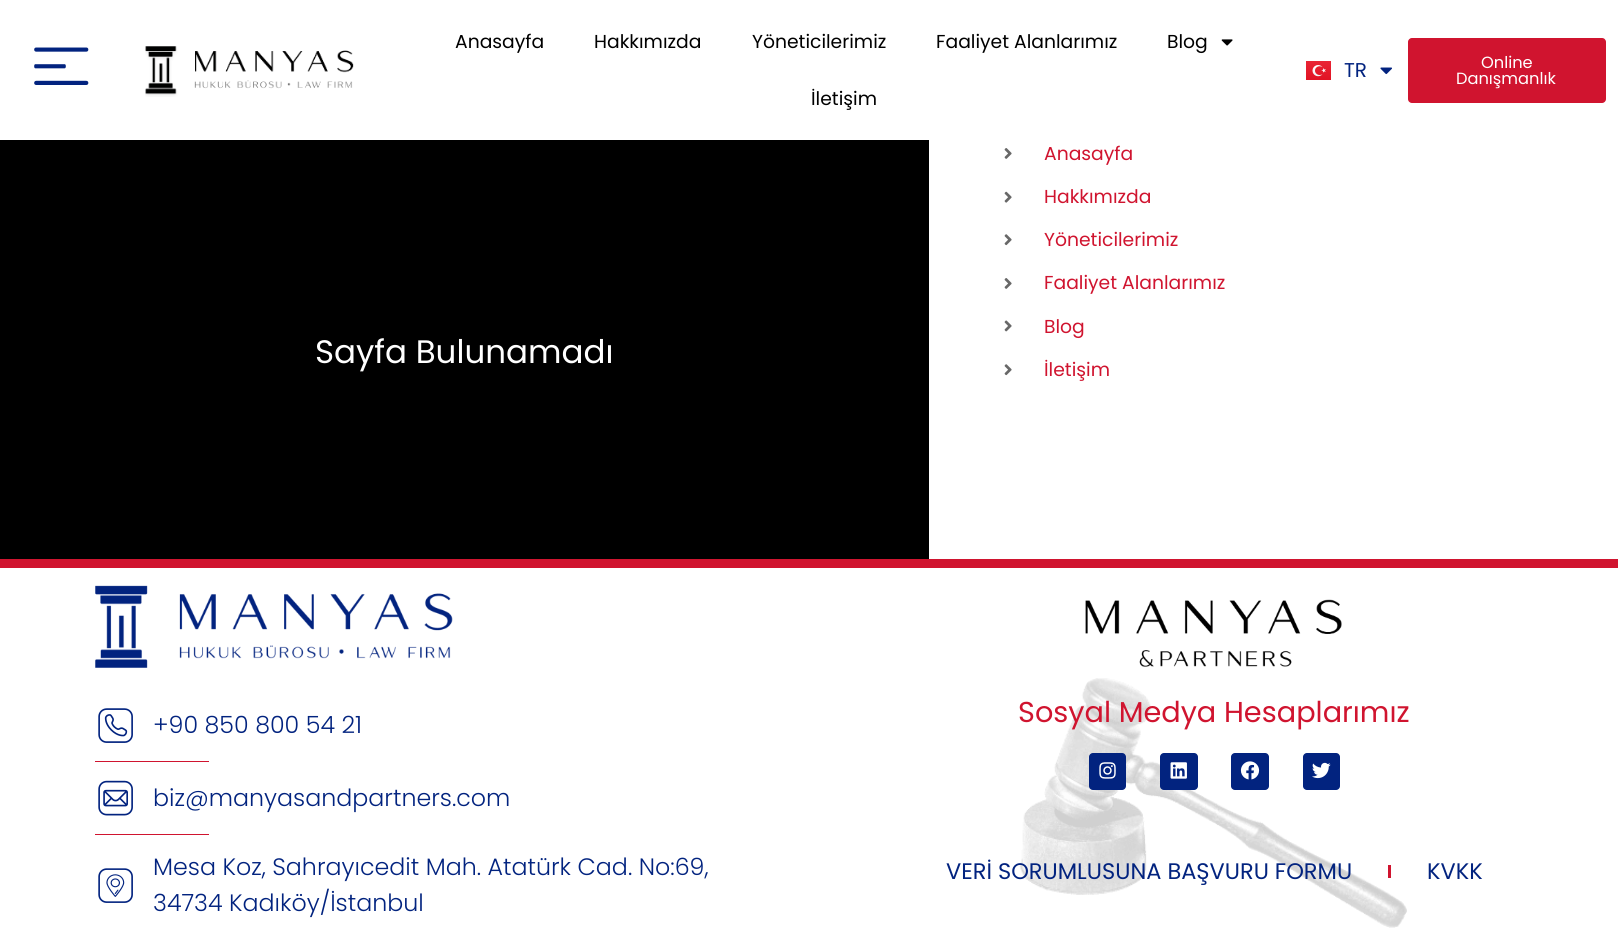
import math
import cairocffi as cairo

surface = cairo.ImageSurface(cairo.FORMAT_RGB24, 1618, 931)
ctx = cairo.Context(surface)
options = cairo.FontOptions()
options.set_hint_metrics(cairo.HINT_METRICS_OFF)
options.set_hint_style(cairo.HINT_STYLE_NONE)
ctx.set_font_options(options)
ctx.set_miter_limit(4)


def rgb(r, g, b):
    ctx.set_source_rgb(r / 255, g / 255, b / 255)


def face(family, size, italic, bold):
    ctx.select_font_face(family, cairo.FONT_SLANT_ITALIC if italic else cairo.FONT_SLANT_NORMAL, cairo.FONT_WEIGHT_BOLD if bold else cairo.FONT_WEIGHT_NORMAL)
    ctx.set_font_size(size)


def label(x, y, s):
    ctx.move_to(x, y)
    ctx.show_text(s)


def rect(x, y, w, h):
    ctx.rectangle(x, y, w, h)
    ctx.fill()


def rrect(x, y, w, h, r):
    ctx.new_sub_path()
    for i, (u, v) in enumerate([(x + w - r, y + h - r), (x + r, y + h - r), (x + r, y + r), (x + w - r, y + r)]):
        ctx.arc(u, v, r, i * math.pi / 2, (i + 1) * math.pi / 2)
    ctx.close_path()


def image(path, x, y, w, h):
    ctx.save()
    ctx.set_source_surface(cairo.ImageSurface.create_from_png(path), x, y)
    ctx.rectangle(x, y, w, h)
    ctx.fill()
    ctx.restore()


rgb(255, 255, 255)
ctx.paint()
image('image0.png', 34, 47, 55, 38)
image('image1.png', 145, 46, 209, 51)
face('Poppins', 18.75, 0, 0)
rgb(0, 0, 0)
label(455, 48, 'Anasayfa')
label(594, 48, 'Hakkımızda')
label(752, 48, 'Yöneticilerimiz')
label(936, 48, 'Faaliyet Alanlarımız')
label(1167, 48, 'Blog')
image('image2.png', 1221, 39, 12, 7)
label(811, 105, 'İletişim')
image('image3.png', 1306, 61, 25, 19)
face('Poppins', 20, 0, 0)
rgb(2, 35, 127)
label(1344, 77, 'TR')
image('image4.png', 1380, 67, 12, 8)
rgb(208, 20, 47)
rrect(1408, 38, 198, 65, 4)
ctx.fill()
face('Poppins', 16.25, 0, 0)
rgb(255, 255, 255)
label(1481, 68, 'Online')
label(1456, 84, 'Danışmanlık')
rgb(0, 0, 0)
rect(0, 140, 929, 419)
face('Poppins', 32.5, 0, 0)
rgb(255, 255, 255)
label(315, 363, 'Sayfa Bulunamadı')
image('image5.png', 1004, 148, 8, 11)
face('Poppins', 18.75, 0, 0)
rgb(208, 20, 47)
label(1044, 160, 'Anasayfa')
image('image6.png', 1004, 191, 8, 12)
label(1044, 203, 'Hakkımızda')
image('image7.png', 1004, 234, 8, 12)
label(1044, 246, 'Yöneticilerimiz')
image('image5.png', 1004, 278, 8, 11)
label(1044, 289, 'Faaliyet Alanlarımız')
image('image8.png', 1004, 320, 8, 12)
label(1044, 333, 'Blog')
image('image7.png', 1004, 364, 8, 12)
label(1044, 376, 'İletişim')
rect(0, 559, 1618, 9)
image('image9.png', 95, 585, 358, 83)
image('image10.png', 98, 708, 35, 35)
face('Poppins Light', 23.75, 0, 0)
rgb(2, 35, 127)
label(153, 733, '+90 850 800 54 21')
rgb(208, 20, 47)
rect(95, 761, 114, 1)
image('image11.png', 98, 780, 35, 36)
rgb(2, 35, 127)
label(153, 806, 'biz@manyasandpartners.com')
rgb(208, 20, 47)
rect(95, 834, 114, 1)
image('image12.png', 98, 868, 35, 35)
rgb(2, 35, 127)
label(153, 875, 'Mesa Koz, Sahrayıcedit Mah. Atatürk Cad. No:69,')
label(153, 911, '34734 Kadıköy/İstanbul')
image('image13.png', 1085, 599, 257, 68)
image('image14.png', 1019, 678, 388, 250)
face('Poppins', 28.75, 0, 0)
rgb(208, 20, 47)
label(1018, 722, 'Sosyal Medya Hesaplarımız')
rgb(2, 35, 127)
rrect(1089, 753, 37, 37, 4)
ctx.fill()
image('image15.png', 1099, 762, 17, 17)
rrect(1160, 753, 38, 37, 4)
ctx.fill()
image('image16.png', 1170, 762, 17, 17)
rrect(1231, 753, 38, 37, 4)
ctx.fill()
image('image17.png', 1240, 761, 20, 19)
rrect(1303, 753, 37, 37, 4)
ctx.fill()
image('image18.png', 1312, 762, 19, 17)
face('Poppins', 22.5, 0, 0)
label(946, 879, 'VERİ SORUMLUSUNA BAŞVURU FORMU')
rgb(208, 20, 47)
rect(1388, 865, 3, 13)
rgb(2, 35, 127)
label(1427, 879, 'KVKK')
surface.write_to_png('render.png')
